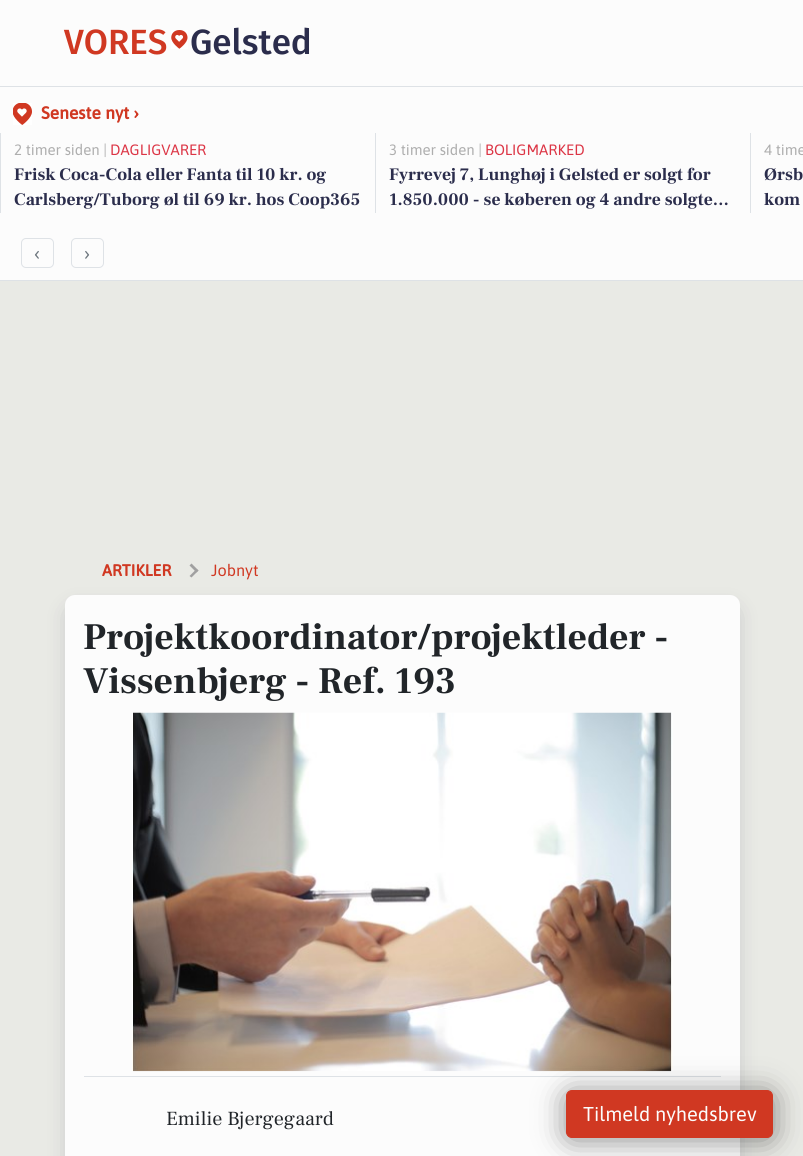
import math
import cairocffi as cairo

surface = cairo.ImageSurface(cairo.FORMAT_RGB24, 803, 1156)
ctx = cairo.Context(surface)
options = cairo.FontOptions()
options.set_hint_metrics(cairo.HINT_METRICS_OFF)
options.set_hint_style(cairo.HINT_STYLE_NONE)
ctx.set_font_options(options)
ctx.set_miter_limit(4)


def rgb(r, g, b):
    ctx.set_source_rgb(r / 255, g / 255, b / 255)


def face(family, size, italic, bold):
    ctx.select_font_face(family, cairo.FONT_SLANT_ITALIC if italic else cairo.FONT_SLANT_NORMAL, cairo.FONT_WEIGHT_BOLD if bold else cairo.FONT_WEIGHT_NORMAL)
    ctx.set_font_size(size)


def label(x, y, s):
    ctx.move_to(x, y)
    ctx.show_text(s)


def rect(x, y, w, h):
    ctx.rectangle(x, y, w, h)
    ctx.fill()


def rrect(x, y, w, h, r):
    ctx.new_sub_path()
    for i, (u, v) in enumerate([(x + w - r, y + h - r), (x + r, y + h - r), (x + r, y + r), (x + w - r, y + r)]):
        ctx.arc(u, v, r, i * math.pi / 2, (i + 1) * math.pi / 2)
    ctx.close_path()


def soft_shadow(x, y, w, h, r, blur, alpha):
    ctx.push_group_with_content(cairo.CONTENT_ALPHA)
    ctx.set_operator(cairo.OPERATOR_SOURCE)
    for i in range(15, -16, -2):
        e = blur * i / 6
        if min(w, h) + 2 * e > 0:
            ctx.set_source_rgba(0, 0, 0, alpha * math.erfc((i - 1) / 8.5) / 2)
            rrect(x - e, y - e, w + 2 * e, h + 2 * e, max(0, min(r + e + blur * .6, min(w, h) / 2 + e)))
            ctx.fill()
    ctx.mask(ctx.pop_group())


def image(path, x, y, w, h):
    ctx.save()
    ctx.set_source_surface(cairo.ImageSurface.create_from_png(path), x, y)
    ctx.rectangle(x, y, w, h)
    ctx.fill()
    ctx.restore()


rgb(233, 234, 229)
ctx.paint()
rgb(252, 252, 252)
rect(0, 0, 803, 280)
rgb(222, 226, 230)
rect(0, 86, 803, 1)
face('Fira Sans Medium', 35, 0, 0)
rgb(208, 56, 34)
label(64, 54, 'VORES')
image('image0.png', 171, 30, 17, 19)
rgb(43, 45, 76)
label(190, 54, 'Gelsted')
rgb(222, 226, 230)
rect(0, 280, 803, 1)
image('image1.png', 13, 103, 19, 22)
face('Asap', 17.5, 0, 1)
rgb(208, 56, 34)
label(41, 119, 'Seneste nyt ›')
rgb(222, 226, 230)
rect(0, 133, 1, 80)
face('Asap', 15, 0, 0)
rgb(174, 174, 174)
label(14, 155, '2 timer siden |')
rgb(220, 53, 69)
label(110, 155, 'DAGLIGVARER')
face('Frank Ruhl Libre', 17.5, 0, 1)
rgb(43, 45, 76)
label(14, 180, 'Frisk Coca-Cola eller Fanta til 10 kr. og')
label(14, 205, 'Carlsberg/Tuborg øl til 69 kr. hos Coop365')
rgb(222, 226, 230)
rect(375, 133, 1, 80)
face('Asap', 15, 0, 0)
rgb(174, 174, 174)
label(389, 155, '3 timer siden |')
rgb(220, 53, 69)
label(485, 155, 'BOLIGMARKED')
face('Frank Ruhl Libre', 17.5, 0, 1)
rgb(43, 45, 76)
label(389, 180, 'Fyrrevej 7, Lunghøj i Gelsted er solgt for')
label(389, 205, '1.850.000 - se køberen og 4 andre solgte…')
rgb(222, 226, 230)
rect(750, 133, 1, 80)
face('Asap', 15, 0, 0)
rgb(174, 174, 174)
label(764, 155, '4 time')
face('Frank Ruhl Libre', 17.5, 0, 1)
rgb(43, 45, 76)
label(764, 180, 'Ørsb')
label(764, 205, 'kom')
rrect(21.5, 238.5, 32, 29, 4.5)
rgb(222, 226, 230)
ctx.set_line_width(1)
ctx.stroke()
face('Asap', 20, 0, 0)
rgb(108, 117, 125)
label(34, 260, '‹')
rrect(71.5, 238.5, 32, 29, 4.5)
rgb(222, 226, 230)
ctx.stroke()
rgb(108, 117, 125)
label(84, 260, '›')
rgb(43, 45, 76)
soft_shadow(65, 605, 675, 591, 10, 10, 0.15)
face('Asap', 16.25, 0, 1)
rgb(208, 56, 34)
label(102, 576, 'ARTIKLER')
rgb(160, 160, 160)
ctx.new_path()
ctx.move_to(191.5, 563.5)
ctx.line_to(198.5, 570.5)
ctx.line_to(196.5, 572.5)
ctx.line_to(189.5, 565.5)
ctx.close_path()
ctx.fill()
ctx.new_path()
ctx.move_to(196.5, 569)
ctx.line_to(198.5, 570.5)
ctx.line_to(191.5, 577.5)
ctx.line_to(189.5, 576)
ctx.close_path()
ctx.fill()
face('Asap', 16.25, 0, 0)
rgb(208, 56, 34)
label(211, 576, 'Jobnyt')
rgb(252, 252, 252)
rrect(65, 595, 675, 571, 10)
ctx.fill()
face('Frank Ruhl Libre', 37.5, 0, 1)
rgb(33, 37, 41)
label(83, 649, 'Projektkoordinator/projektleder -')
label(83, 693, 'Vissenbjerg - Ref. 193')
image('image2.png', 132, 712, 541, 360)
rgb(222, 226, 230)
rect(84, 1076, 637, 1)
face('Frank Ruhl Libre', 20, 0, 0)
rgb(33, 37, 41)
label(166, 1125, 'Emilie Bjergegaard')
rrect(568.5, 1099.5, 134, 38, 5.5)
rgb(208, 56, 34)
ctx.stroke()
rgb(0, 0, 0)
soft_shadow(566, 1093, 207, 47, 6, 15, 0.45)
rgb(208, 56, 34)
rrect(566.5, 1090.5, 206, 47, 5.5)
ctx.fill_preserve()
ctx.stroke()
face('Asap', 20, 0, 0)
rgb(252, 252, 252)
label(583, 1121, 'Tilmeld nyhedsbrev')
surface.write_to_png('render.png')
